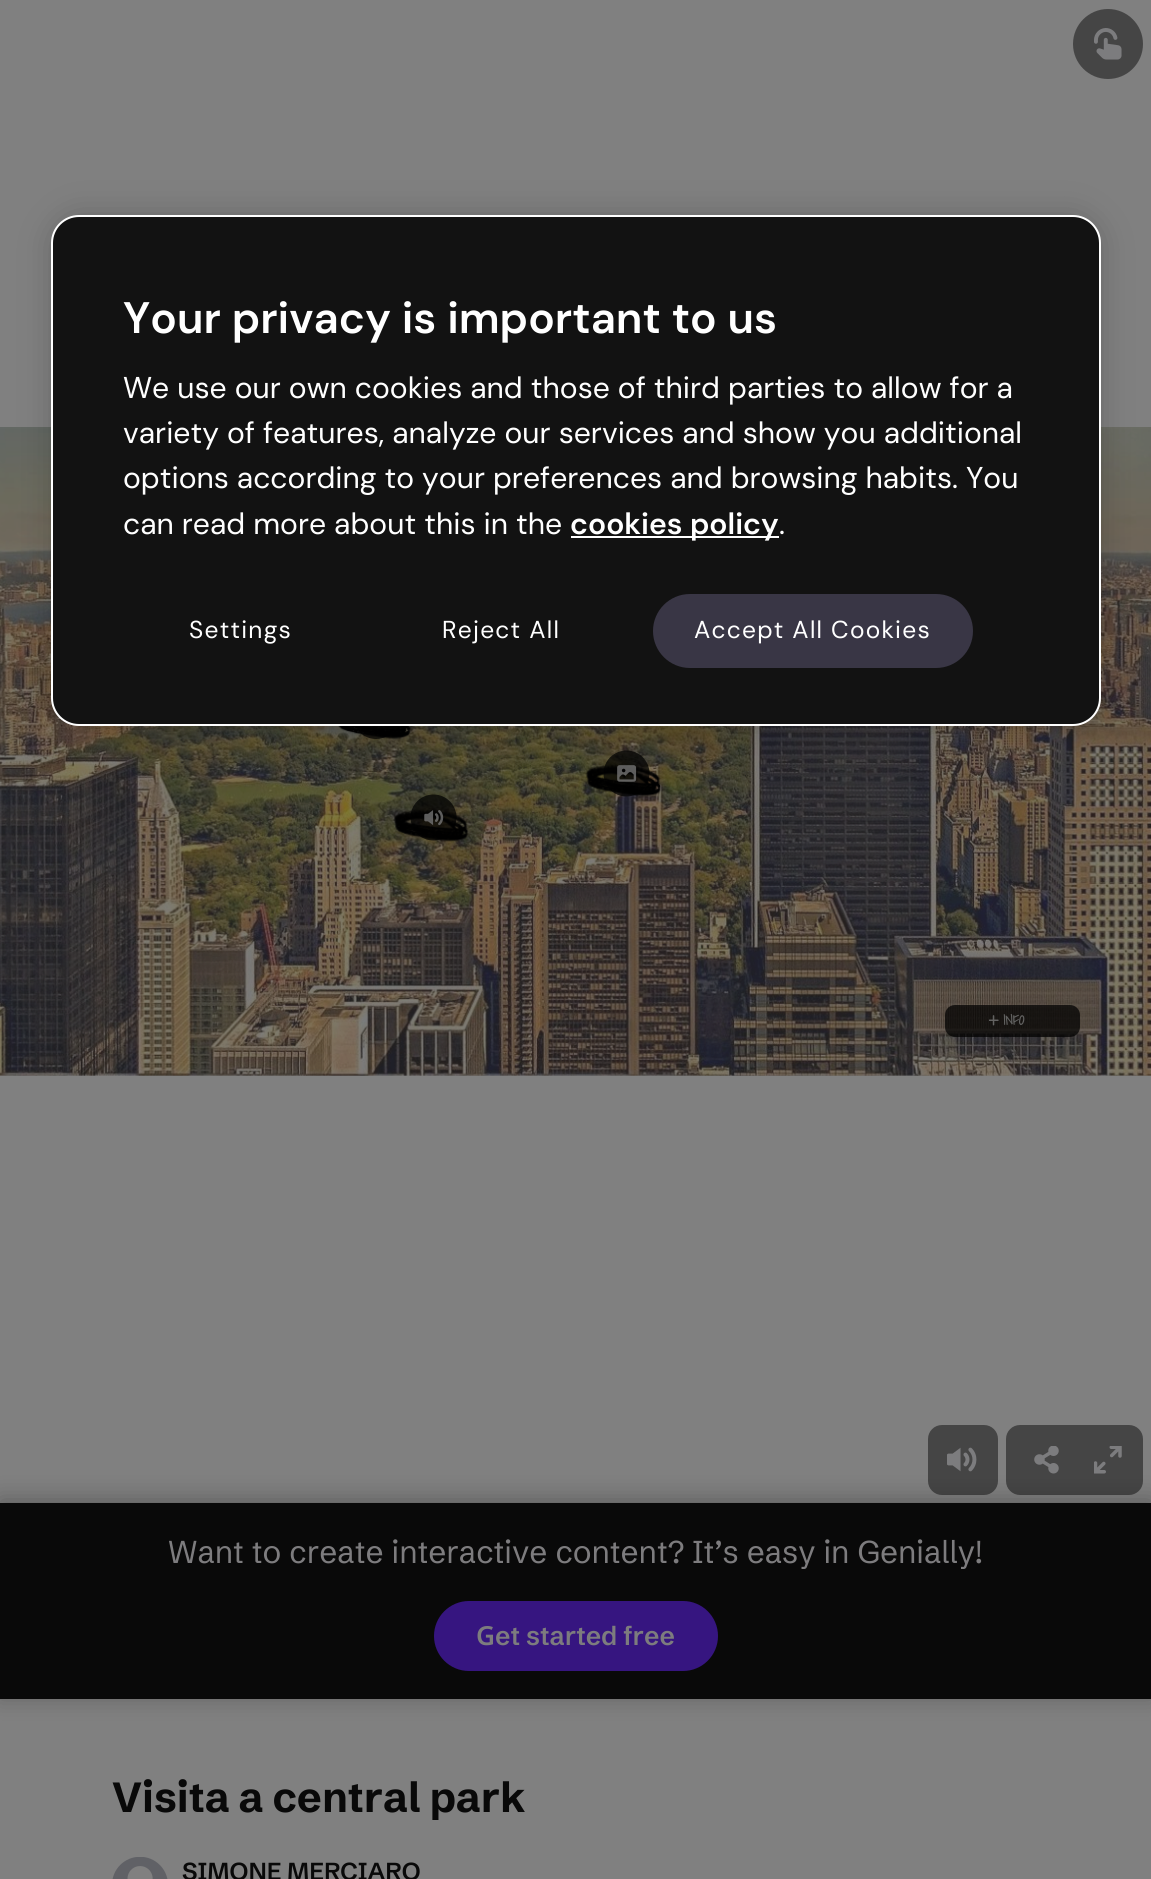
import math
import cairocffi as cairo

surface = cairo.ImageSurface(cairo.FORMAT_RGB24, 1151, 1879)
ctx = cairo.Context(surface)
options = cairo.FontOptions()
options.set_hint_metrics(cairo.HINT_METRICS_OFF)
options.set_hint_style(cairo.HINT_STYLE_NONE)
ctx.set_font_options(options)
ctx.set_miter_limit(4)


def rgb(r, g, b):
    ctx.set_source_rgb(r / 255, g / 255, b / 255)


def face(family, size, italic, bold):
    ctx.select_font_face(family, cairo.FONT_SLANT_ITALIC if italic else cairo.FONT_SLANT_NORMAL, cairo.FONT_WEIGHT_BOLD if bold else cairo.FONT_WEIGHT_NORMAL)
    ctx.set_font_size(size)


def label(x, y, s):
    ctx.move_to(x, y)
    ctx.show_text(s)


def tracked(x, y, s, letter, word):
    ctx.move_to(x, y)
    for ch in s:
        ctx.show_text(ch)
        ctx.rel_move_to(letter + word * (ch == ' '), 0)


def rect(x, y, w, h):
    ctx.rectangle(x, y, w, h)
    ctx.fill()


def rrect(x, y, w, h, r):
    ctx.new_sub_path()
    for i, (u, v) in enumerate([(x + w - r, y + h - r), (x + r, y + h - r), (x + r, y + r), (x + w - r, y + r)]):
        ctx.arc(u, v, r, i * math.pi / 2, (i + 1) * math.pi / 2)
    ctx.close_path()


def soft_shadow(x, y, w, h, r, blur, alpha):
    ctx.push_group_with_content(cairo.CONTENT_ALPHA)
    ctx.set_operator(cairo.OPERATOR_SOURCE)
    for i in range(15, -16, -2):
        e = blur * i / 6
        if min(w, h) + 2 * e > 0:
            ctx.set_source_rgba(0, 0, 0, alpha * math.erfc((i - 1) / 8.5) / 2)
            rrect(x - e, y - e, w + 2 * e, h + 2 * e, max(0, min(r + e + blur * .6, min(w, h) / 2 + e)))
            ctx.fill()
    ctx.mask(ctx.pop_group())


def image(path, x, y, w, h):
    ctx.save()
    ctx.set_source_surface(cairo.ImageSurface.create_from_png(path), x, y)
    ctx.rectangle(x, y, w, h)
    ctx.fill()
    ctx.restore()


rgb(128, 128, 128)
ctx.paint()
rgb(125, 125, 125)
rect(0, 429, 1151, 647)
image('image4.png', 0, 427, 1151, 649)
image('image5.png', 338, 726, 73, 13)
image('image6.png', 355, 726, 42, 13)
image('image8.png', 586, 764, 76, 33)
image('image7.png', 603, 750, 47, 47)
rgb(0, 0, 0)
soft_shadow(51, 215, 1050, 511, 28, 16, 0.2)
rgb(18, 18, 18)
rrect(52, 216, 1048, 509, 27)
ctx.fill_preserve()
rgb(255, 255, 255)
ctx.stroke()
face('DM Sans SemiBold', 44.1, 0, 0)
label(123, 333, 'Your privacy is important to us')
face('DM Sans', 30.1, 0, 0)
label(123, 398, 'We use our own cookies and those of third parties to allow for a')
label(123, 443, 'variety of features, analyze our services and show you additional')
label(123, 488, 'options according to your preferences and browsing habits. You')
label(123, 534, 'can read more about this in the')
rect(571, 536, 208, 2)
face('DM Sans SemiBold', 30.1, 0, 0)
label(570, 534, 'cookies policy')
face('DM Sans', 30.1, 0, 0)
label(779, 534, '.')
face('DM Sans', 24.5, 0, 0)
tracked(189, 638, 'Settings', 1.25, 0)
tracked(442, 638, 'Reject All', 1.25, 0)
rgb(57, 54, 69)
rrect(652, 593, 322, 76, 38)
ctx.fill_preserve()
rgb(18, 18, 18)
ctx.stroke()
rgb(255, 255, 255)
tracked(694, 638, 'Accept All Cookies', 1.25, 0)
rgb(69, 69, 69)
ctx.new_path()
ctx.arc(1108, 44, 35, 0, 2 * math.pi)
ctx.fill()
image('image0.png', 1094, 28, 28, 32)
rrect(928, 1425, 70, 70, 14)
ctx.fill()
image('image1.png', 947, 1447, 30, 25)
rrect(1006, 1425, 137, 70, 14)
ctx.fill()
image('image2.png', 1034, 1446, 25, 28)
image('image3.png', 1094, 1446, 28, 28)
image('image10.png', 394, 809, 75, 33)
image('image9.png', 410, 794, 47, 47)
ctx.set_source_rgba(0, 0, 0, 0.72)
rrect(945, 1005, 135, 32, 10)
ctx.fill()
image('image11.png', 989, 1015, 10, 11)
face('Shadows Into Light', 14, 0, 1)
rgb(98, 98, 97)
label(1003, 1025, 'INFO')
rgb(9, 9, 9)
soft_shadow(0, 1500, 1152, 196, 0, 11.5, 0.3)
rgb(9, 9, 9)
rect(0, 1503, 1151, 196)
face('Schibsted Grotesk', 31.5, 0, 0)
rgb(125, 124, 126)
label(168, 1563, 'Want to create interactive content? It’s easy in Genially!')
rgb(54, 21, 128)
rrect(434, 1601, 284, 70, 35)
ctx.fill()
face('Noto Sans SemiBold', 26.25, 0, 0)
rgb(125, 124, 126)
label(476, 1645, 'G')
face('Schibsted Grotesk SemiBold', 26.25, 0, 0)
label(495, 1645, 'et started free')
face('Schibsted Grotesk', 42, 0, 1)
rgb(9, 9, 9)
label(112, 1812, 'Visita a central park')
image('image12.png', 112, 1857, 56, 22)
face('Schibsted Grotesk SemiBold', 24.5, 0, 0)
label(182, 1880, 'SIMONE MERCIARO')
surface.write_to_png('render.png')
